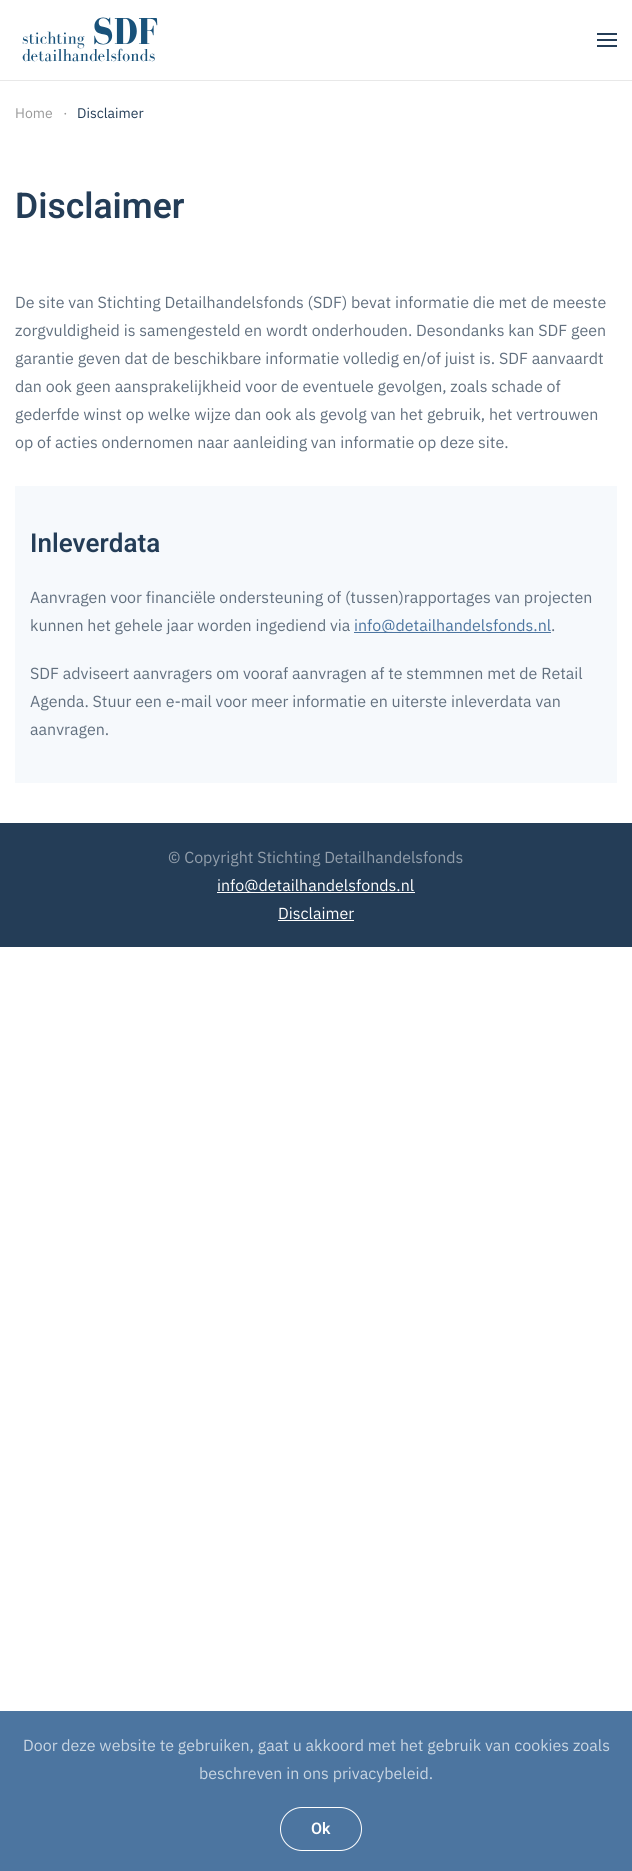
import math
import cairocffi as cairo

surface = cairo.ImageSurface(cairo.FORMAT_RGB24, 632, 1871)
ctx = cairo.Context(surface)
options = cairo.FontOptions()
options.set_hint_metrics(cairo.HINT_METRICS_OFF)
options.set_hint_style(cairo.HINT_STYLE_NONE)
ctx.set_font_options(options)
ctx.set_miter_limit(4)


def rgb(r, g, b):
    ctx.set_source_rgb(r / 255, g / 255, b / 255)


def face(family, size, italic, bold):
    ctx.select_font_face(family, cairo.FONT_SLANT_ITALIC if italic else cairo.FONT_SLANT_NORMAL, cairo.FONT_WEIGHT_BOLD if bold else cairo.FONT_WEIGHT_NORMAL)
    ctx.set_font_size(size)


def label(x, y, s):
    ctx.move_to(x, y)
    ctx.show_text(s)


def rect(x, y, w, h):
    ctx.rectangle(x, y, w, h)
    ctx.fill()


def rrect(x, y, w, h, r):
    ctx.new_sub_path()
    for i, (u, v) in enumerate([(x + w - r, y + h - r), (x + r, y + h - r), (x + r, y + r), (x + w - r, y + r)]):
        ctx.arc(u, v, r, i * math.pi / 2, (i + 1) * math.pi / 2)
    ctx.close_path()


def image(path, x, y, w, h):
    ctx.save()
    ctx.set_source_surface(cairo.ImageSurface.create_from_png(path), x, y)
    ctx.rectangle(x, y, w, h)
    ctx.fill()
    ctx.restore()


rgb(255, 255, 255)
ctx.paint()
rgb(232, 232, 232)
rect(0, 80, 632, 1)
image('image0.png', 22, 17, 136, 45)
rgb(36, 61, 87)
rect(597, 33, 20, 2)
rect(597, 39, 20, 2)
rect(597, 45, 20, 2)
face('IBM Plex Sans', 14, 0, 0)
rgb(153, 153, 153)
label(15, 118, 'Home')
label(63, 118, '·')
rgb(36, 61, 87)
label(77, 118, 'Disclaimer')
face('Heebo SemiBold', 35.5, 0, 0)
label(15, 218, 'Disclaimer')
face('IBM Plex Sans', 16, 0, 0)
rgb(98, 112, 127)
label(15, 308, 'De site van Stichting Detailhandelsfonds (SDF) bevat informatie die met de meeste')
label(15, 336, 'zorgvuldigheid is samengesteld en wordt onderhouden. Desondanks kan SDF geen')
label(15, 364, 'garantie geven dat de beschikbare informatie volledig en/of juist is. SDF aanvaardt')
label(15, 392, 'dan ook geen aansprakelijkheid voor de eventuele gevolgen, zoals schade of')
label(15, 420, 'gederfde winst op welke wijze dan ook als gevolg van het gebruik, het vertrouwen')
label(15, 448, 'op of acties ondernomen naar aanleiding van informatie op deze site.')
rgb(246, 249, 252)
rect(15, 486, 602, 297)
face('Heebo SemiBold', 26, 0, 0)
rgb(36, 61, 87)
label(30, 552, 'Inleverdata')
face('IBM Plex Sans', 16, 0, 0)
rgb(98, 112, 127)
label(30, 603, 'Aanvragen voor financiële ondersteuning of (tussen)rapportages van projecten')
label(30, 631, 'kunnen het gehele jaar worden ingediend via')
rgb(76, 117, 160)
rect(354, 632, 197, 1)
label(354, 631, 'info@detailhandelsfonds.nl')
rgb(98, 112, 127)
label(551, 631, '.')
label(30, 679, 'SDF adviseert aanvragers om vooraf aanvragen af te stemmnen met de Retail')
label(30, 707, 'Agenda. Stuur een e-mail voor meer informatie en uiterste inleverdata van')
label(30, 735, 'aanvragen.')
rgb(36, 61, 87)
rect(0, 823, 632, 124)
rgb(146, 158, 171)
label(168, 863, '© Copyright Stichting Detailhandelsfonds')
rgb(255, 255, 255)
rect(217, 892, 198, 1)
label(217, 891, 'info@detailhandelsfonds.nl')
label(278, 919, 'Disclaimer')
rect(278, 920, 76, 1)
rgb(76, 117, 160)
rect(0, 1711, 632, 160)
rgb(201, 214, 227)
label(23, 1751, 'Door deze website te gebruiken, gaat u akkoord met het gebruik van cookies zoals')
label(199, 1779, 'beschreven in ons privacybeleid.')
rrect(280.5, 1807.5, 81, 43, 21.5)
rgb(255, 255, 255)
ctx.set_line_width(1)
ctx.stroke()
face('Heebo SemiBold', 16, 0, 0)
label(311, 1834, 'Ok')
surface.write_to_png('render.png')
